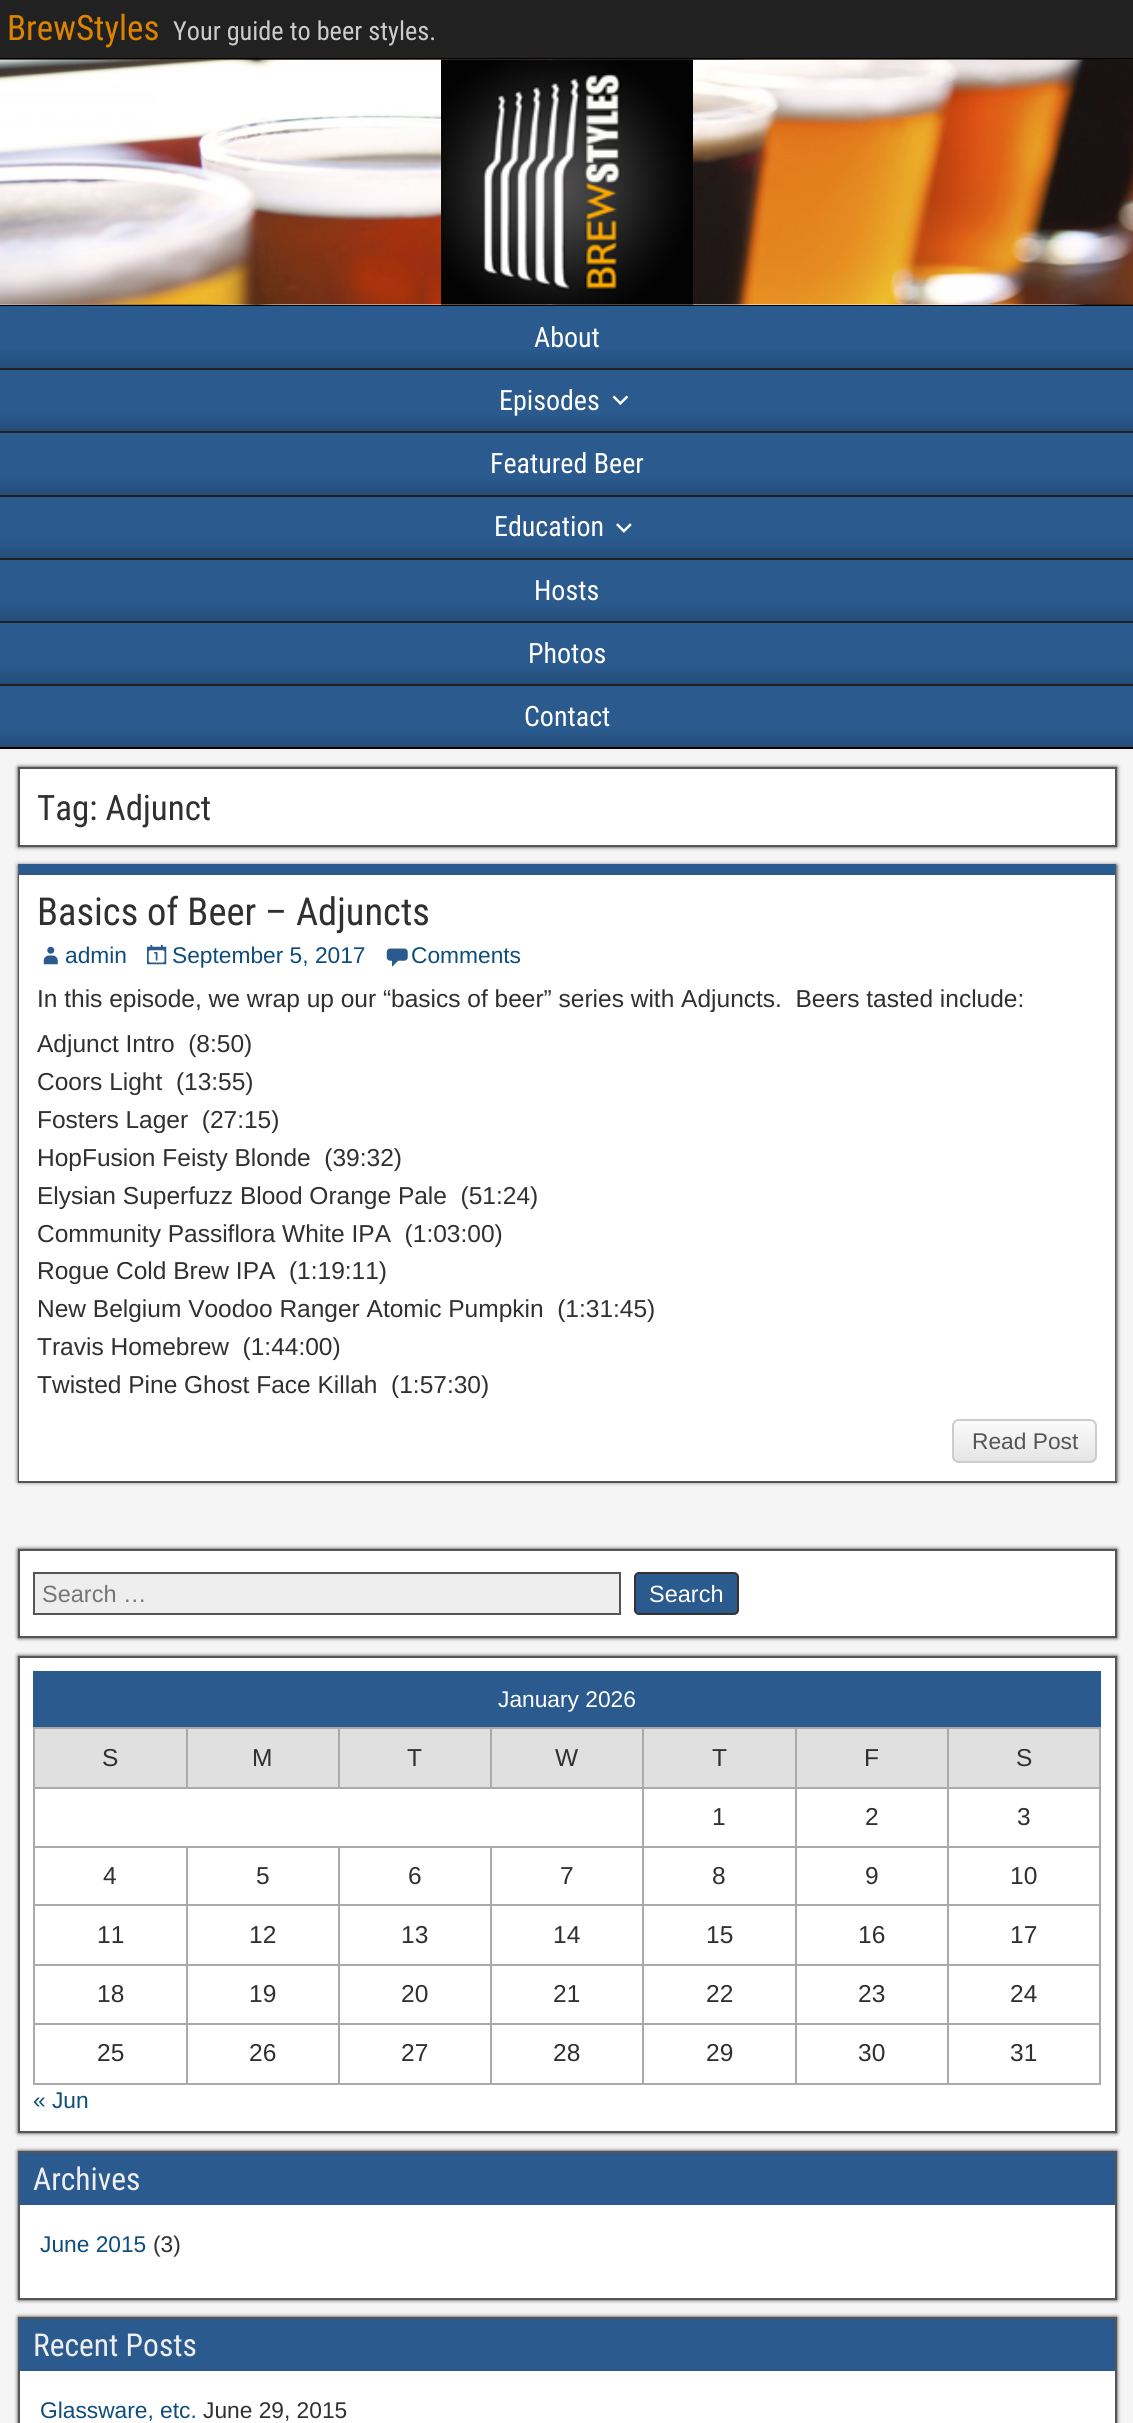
import math
import cairocffi as cairo

surface = cairo.ImageSurface(cairo.FORMAT_RGB24, 1133, 2423)
ctx = cairo.Context(surface)
options = cairo.FontOptions()
options.set_hint_metrics(cairo.HINT_METRICS_OFF)
options.set_hint_style(cairo.HINT_STYLE_NONE)
ctx.set_font_options(options)
ctx.set_miter_limit(4)


def rgb(r, g, b):
    ctx.set_source_rgb(r / 255, g / 255, b / 255)


def face(family, size, italic, bold):
    ctx.select_font_face(family, cairo.FONT_SLANT_ITALIC if italic else cairo.FONT_SLANT_NORMAL, cairo.FONT_WEIGHT_BOLD if bold else cairo.FONT_WEIGHT_NORMAL)
    ctx.set_font_size(size)


def label(x, y, s):
    ctx.move_to(x, y)
    ctx.show_text(s)


def rect(x, y, w, h):
    ctx.rectangle(x, y, w, h)
    ctx.fill()


def rrect(x, y, w, h, r):
    ctx.new_sub_path()
    for i, (u, v) in enumerate([(x + w - r, y + h - r), (x + r, y + h - r), (x + r, y + r), (x + w - r, y + r)]):
        ctx.arc(u, v, r, i * math.pi / 2, (i + 1) * math.pi / 2)
    ctx.close_path()


def soft_shadow(x, y, w, h, r, blur, alpha):
    ctx.push_group_with_content(cairo.CONTENT_ALPHA)
    ctx.set_operator(cairo.OPERATOR_SOURCE)
    for i in range(15, -16, -2):
        e = blur * i / 6
        if min(w, h) + 2 * e > 0:
            ctx.set_source_rgba(0, 0, 0, alpha * math.erfc((i - 1) / 8.5) / 2)
            rrect(x - e, y - e, w + 2 * e, h + 2 * e, max(0, min(r + e + blur * .6, min(w, h) / 2 + e)))
            ctx.fill()
    ctx.mask(ctx.pop_group())


def image(path, x, y, w, h):
    ctx.save()
    ctx.set_source_surface(cairo.ImageSurface.create_from_png(path), x, y)
    ctx.rectangle(x, y, w, h)
    ctx.fill()
    ctx.restore()


rgb(33, 33, 33)
ctx.paint()
rgb(0, 0, 0)
rect(0, 58, 1133, 2)
face('Roboto Condensed', 35, 0, 0)
rgb(220, 131, 0)
label(7, 40, 'BrewStyles')
face('Roboto Condensed', 26.25, 0, 0)
rgb(204, 204, 204)
label(173, 40, 'Your guide to beer styles.')
image('image0.png', 0, 59, 1133, 246)
rgb(0, 0, 0)
rect(0, 305, 1133, 1)
image('image1.png', 441, 59, 252, 246)
rgb(42, 90, 142)
rect(0, 370, 1133, 125)
rgb(0, 0, 0)
rect(0, 747, 1133, 2)
gradient = cairo.LinearGradient(567, 306, 567, 368)
gradient.add_color_stop_rgba(0.7, 0.165, 0.353, 0.557, 1)
gradient.add_color_stop_rgba(1, 0.141, 0.302, 0.475, 1)
ctx.set_source(gradient)
rect(0, 306, 1133, 62)
face('Roboto Condensed', 28, 0, 0)
rgb(255, 255, 255)
label(534, 347, 'About')
gradient = cairo.LinearGradient(567, 369, 567, 431)
gradient.add_color_stop_rgba(0.7, 0, 0, 0, 0)
gradient.add_color_stop_rgba(1, 0, 0, 0, 0.15)
ctx.set_source(gradient)
rect(0, 415, 1133, 16)
rgb(34, 34, 34)
rect(0, 431, 1133, 2)
rgb(255, 255, 255)
label(499, 410, 'Episodes')
image('image2.png', 612, 395, 17, 10)
gradient = cairo.LinearGradient(567, 432, 567, 495)
gradient.add_color_stop_rgba(0.7, 0, 0, 0, 0)
gradient.add_color_stop_rgba(1, 0, 0, 0, 0.15)
ctx.set_source(gradient)
rect(0, 479, 1133, 16)
rgb(255, 255, 255)
label(490, 473, 'Featured Beer')
gradient = cairo.LinearGradient(567, 497, 567, 558)
gradient.add_color_stop_rgba(0.7, 0.165, 0.353, 0.557, 1)
gradient.add_color_stop_rgba(1, 0.141, 0.302, 0.475, 1)
ctx.set_source(gradient)
rect(0, 497, 1133, 61)
rgb(255, 255, 255)
label(494, 536, 'Education')
image('image3.png', 616, 523, 16, 10)
gradient = cairo.LinearGradient(567, 560, 567, 621)
gradient.add_color_stop_rgba(0.7, 0.165, 0.353, 0.557, 1)
gradient.add_color_stop_rgba(1, 0.141, 0.302, 0.475, 1)
ctx.set_source(gradient)
rect(0, 560, 1133, 61)
rgb(255, 255, 255)
label(534, 600, 'Hosts')
gradient = cairo.LinearGradient(567, 623, 567, 684)
gradient.add_color_stop_rgba(0.7, 0.165, 0.353, 0.557, 1)
gradient.add_color_stop_rgba(1, 0.141, 0.302, 0.475, 1)
ctx.set_source(gradient)
rect(0, 623, 1133, 61)
rgb(255, 255, 255)
label(528, 663, 'Photos')
gradient = cairo.LinearGradient(567, 686, 567, 747)
gradient.add_color_stop_rgba(0.7, 0.165, 0.353, 0.557, 1)
gradient.add_color_stop_rgba(1, 0.141, 0.302, 0.475, 1)
ctx.set_source(gradient)
rect(0, 686, 1133, 61)
rgb(255, 255, 255)
label(524, 726, 'Contact')
rgb(245, 245, 245)
rect(0, 749, 1133, 1674)
rgb(51, 51, 51)
soft_shadow(18, 767, 1099, 80, 0, 2, 1)
rgb(255, 255, 255)
ctx.rectangle(19, 768, 1097, 78)
ctx.fill_preserve()
rgb(85, 85, 85)
ctx.stroke()
face('Roboto Condensed', 35, 0, 0)
rgb(48, 48, 48)
label(37, 820, 'Tag: Adjunct')
rgb(51, 51, 51)
soft_shadow(18, 865, 1099, 617, 0, 2, 1)
rgb(255, 255, 255)
rect(19, 875, 1096, 606)
rgb(42, 90, 142)
ctx.new_path()
ctx.move_to(18, 864)
ctx.line_to(1116, 864)
ctx.line_to(1115, 875)
ctx.line_to(19, 875)
ctx.close_path()
ctx.fill()
rgb(85, 85, 85)
ctx.new_path()
ctx.move_to(1116, 864)
ctx.line_to(1116, 1482)
ctx.line_to(1115, 1480)
ctx.line_to(1115, 875)
ctx.close_path()
ctx.fill()
rect(18, 1481, 1099, 2)
ctx.new_path()
ctx.move_to(18, 1482)
ctx.line_to(18, 864)
ctx.line_to(19, 875)
ctx.line_to(19, 1480)
ctx.close_path()
ctx.fill()
face('Roboto Condensed', 38.5, 0, 0)
rgb(48, 48, 48)
label(37, 925, 'Basics of Beer – Adjuncts')
image('image4.png', 43, 946, 15, 19)
face('Liberation Sans', 22.75, 0, 0)
rgb(14, 77, 122)
label(65, 963, 'admin')
image('image5.png', 147, 945, 20, 20)
label(172, 963, 'September 5, 2017')
image('image6.png', 386, 948, 22, 19)
label(411, 963, 'Comments')
face('Arimo', 24.5, 0, 0)
rgb(48, 48, 48)
label(37, 1007, 'In this episode, we wrap up our “basics of beer” series with Adjuncts.  Beers tasted include:')
label(37, 1052, 'Adjunct Intro  (8:50)')
label(37, 1090, 'Coors Light  (13:55)')
label(37, 1128, 'Fosters Lager  (27:15)')
label(37, 1166, 'HopFusion Feisty Blonde  (39:32)')
label(37, 1204, 'Elysian Superfuzz Blood Orange Pale  (51:24)')
label(37, 1242, 'Community Passiflora White IPA  (1:03:00)')
label(37, 1279, 'Rogue Cold Brew IPA  (1:19:11)')
label(37, 1317, 'New Belgium Voodoo Ranger Atomic Pumpkin  (1:31:45)')
label(37, 1355, 'Travis Homebrew  (1:44:00)')
label(37, 1393, 'Twisted Pine Ghost Face Killah  (1:57:30)')
ctx.save()
rrect(952, 1419, 145, 44, 7)
ctx.clip()
gradient = cairo.LinearGradient(1025, 1421, 1025, 1461)
gradient.add_color_stop_rgba(0, 0.984, 0.984, 0.984, 1)
gradient.add_color_stop_rgba(1, 0.898, 0.898, 0.898, 1)
ctx.set_source(gradient)
rect(952, 1421, 145, 40)
ctx.restore()
rrect(953, 1420, 143, 42, 6)
rgb(204, 204, 204)
ctx.stroke()
face('Liberation Sans', 22.75, 0, 0)
rgb(85, 85, 85)
label(972, 1449, 'Read Post')
rgb(51, 51, 51)
soft_shadow(18, 1549, 1099, 89, 0, 2, 1)
rgb(255, 255, 255)
ctx.rectangle(19, 1550, 1097, 87)
ctx.fill_preserve()
rgb(85, 85, 85)
ctx.stroke()
rgb(238, 238, 238)
ctx.rectangle(34, 1573, 586, 41)
ctx.fill_preserve()
rgb(85, 85, 85)
ctx.stroke()
face('Liberation Sans', 23.5, 0, 0)
rgb(117, 117, 117)
label(42, 1602, 'Search …')
rgb(42, 90, 142)
rrect(635, 1573, 103, 41, 4)
ctx.fill_preserve()
rgb(51, 51, 51)
ctx.stroke()
rgb(255, 255, 255)
label(649, 1602, 'Search')
rgb(51, 51, 51)
soft_shadow(18, 1656, 1099, 477, 0, 2, 1)
rgb(255, 255, 255)
ctx.rectangle(19, 1657, 1097, 475)
ctx.fill_preserve()
rgb(85, 85, 85)
ctx.stroke()
rgb(42, 90, 142)
rect(33, 1671, 1068, 56)
face('Liberation Sans', 22.75, 0, 0)
rgb(255, 255, 255)
label(498, 1707, 'January 2026')
rgb(224, 224, 224)
rect(35, 1729, 151, 58)
rgb(170, 170, 170)
rect(947, 1727, 154, 2)
rect(947, 1787, 154, 2)
rect(947, 1846, 154, 2)
rect(947, 1904, 154, 2)
rect(947, 1964, 154, 2)
rect(947, 2023, 154, 2)
rect(1099, 2023, 2, 61)
rect(947, 2083, 154, 2)
rect(947, 2023, 2, 61)
rect(795, 2023, 154, 2)
rect(947, 1964, 2, 61)
rect(795, 1964, 154, 2)
rect(947, 1904, 2, 61)
rect(795, 1904, 154, 2)
rect(947, 1846, 2, 60)
rect(795, 1846, 154, 2)
rect(947, 1787, 2, 61)
rect(795, 1787, 154, 2)
rect(947, 1727, 2, 62)
rect(795, 1727, 154, 2)
rect(795, 2083, 154, 2)
rect(795, 2023, 2, 61)
rect(642, 2023, 154, 2)
rect(795, 1964, 2, 61)
rect(642, 1964, 154, 2)
rect(795, 1904, 2, 61)
rect(642, 1904, 154, 2)
rect(795, 1846, 2, 60)
rect(642, 1846, 154, 2)
rect(795, 1787, 2, 61)
rect(642, 1787, 154, 2)
rect(795, 1727, 2, 62)
rect(642, 1727, 154, 2)
rect(642, 2083, 154, 2)
rect(642, 2023, 2, 61)
rect(490, 2023, 154, 2)
rect(642, 1964, 2, 61)
rect(490, 1964, 154, 2)
rect(642, 1904, 2, 61)
rect(490, 1904, 154, 2)
rect(642, 1846, 2, 60)
rect(490, 1846, 154, 2)
rect(642, 1787, 2, 61)
rect(33, 1787, 611, 2)
rect(642, 1727, 2, 62)
rect(490, 1727, 154, 2)
rect(490, 1727, 2, 62)
rect(338, 1727, 154, 2)
rect(338, 1727, 2, 62)
rect(186, 1727, 154, 2)
rect(186, 1727, 2, 62)
rect(33, 1727, 154, 2)
rect(490, 2083, 154, 2)
rect(490, 2023, 2, 61)
rect(338, 2023, 154, 2)
rect(490, 1964, 2, 61)
rect(338, 1964, 154, 2)
rect(490, 1904, 2, 61)
rect(338, 1904, 154, 2)
rect(490, 1846, 2, 60)
rect(338, 1846, 154, 2)
rect(338, 2083, 154, 2)
rect(338, 2023, 2, 61)
rect(186, 2023, 154, 2)
rect(338, 1964, 2, 61)
rect(186, 1964, 154, 2)
rect(338, 1904, 2, 61)
rect(186, 1904, 154, 2)
rect(338, 1846, 2, 60)
rect(186, 1846, 154, 2)
rect(186, 2083, 154, 2)
rect(186, 2023, 2, 61)
rect(33, 2023, 154, 2)
rect(186, 1964, 2, 61)
rect(33, 1964, 154, 2)
rect(186, 1904, 2, 61)
rect(33, 1904, 154, 2)
rect(186, 1846, 2, 60)
rect(33, 1846, 154, 2)
rect(33, 2083, 154, 2)
rect(33, 2023, 2, 61)
rect(33, 1964, 2, 61)
rect(33, 1904, 2, 61)
rect(33, 1846, 2, 60)
rect(33, 1787, 2, 61)
rect(33, 1727, 2, 62)
face('Liberation Sans', 24.5, 0, 0)
rgb(48, 48, 48)
label(102, 1766, 'S')
rgb(224, 224, 224)
rect(188, 1729, 150, 58)
rgb(48, 48, 48)
label(252, 1766, 'M')
rgb(224, 224, 224)
rect(340, 1729, 150, 58)
rgb(48, 48, 48)
label(407, 1766, 'T')
rgb(224, 224, 224)
rect(492, 1729, 150, 58)
rgb(48, 48, 48)
label(555, 1766, 'W')
rgb(224, 224, 224)
rect(644, 1729, 151, 58)
rgb(48, 48, 48)
label(712, 1766, 'T')
rgb(224, 224, 224)
rect(797, 1729, 150, 58)
rgb(48, 48, 48)
label(864, 1766, 'F')
rgb(224, 224, 224)
rect(949, 1729, 150, 58)
rgb(170, 170, 170)
rect(1099, 1964, 2, 61)
rect(1099, 1904, 2, 61)
rect(1099, 1846, 2, 60)
rect(1099, 1787, 2, 61)
rect(1099, 1727, 2, 62)
rgb(48, 48, 48)
label(1016, 1766, 'S')
label(712, 1825, '1')
label(865, 1825, '2')
label(1017, 1825, '3')
label(103, 1884, '4')
label(256, 1884, '5')
label(408, 1884, '6')
label(560, 1884, '7')
label(712, 1884, '8')
label(865, 1884, '9')
label(1010, 1884, '10')
label(97, 1943, '11')
label(249, 1943, '12')
label(401, 1943, '13')
label(553, 1943, '14')
label(706, 1943, '15')
label(858, 1943, '16')
label(1010, 1943, '17')
label(97, 2002, '18')
label(249, 2002, '19')
label(401, 2002, '20')
label(553, 2002, '21')
label(706, 2002, '22')
label(858, 2002, '23')
label(1010, 2002, '24')
label(97, 2061, '25')
label(249, 2061, '26')
label(401, 2061, '27')
label(553, 2061, '28')
label(706, 2061, '29')
label(858, 2061, '30')
label(1010, 2061, '31')
face('Liberation Sans', 22.75, 0, 0)
rgb(14, 77, 122)
label(33, 2108, '« Jun')
rgb(51, 51, 51)
soft_shadow(18, 2151, 1099, 149, 0, 2, 1)
rgb(255, 255, 255)
rect(20, 2205, 1095, 93)
ctx.rectangle(19, 2152, 1097, 147)
rgb(85, 85, 85)
ctx.stroke()
rgb(42, 90, 142)
rect(19, 2153, 1096, 52)
face('Roboto Condensed', 31.5, 0, 0)
rgb(238, 238, 238)
label(33, 2190, 'Archives')
face('Liberation Sans', 22.75, 0, 0)
rgb(14, 77, 122)
label(40, 2252, 'June 2015')
rgb(48, 48, 48)
label(153, 2252, '(3)')
rgb(51, 51, 51)
soft_shadow(18, 2317, 1099, 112, 0, 2, 1)
rgb(255, 255, 255)
rect(20, 2371, 1095, 52)
ctx.rectangle(19, 2318, 1097, 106)
rgb(85, 85, 85)
ctx.stroke()
rgb(42, 90, 142)
rect(19, 2319, 1096, 52)
face('Roboto Condensed', 31.5, 0, 0)
rgb(238, 238, 238)
label(33, 2356, 'Recent Posts')
face('Liberation Sans', 22.75, 0, 0)
rgb(14, 77, 122)
label(40, 2418, 'Glassware, etc.')
rgb(48, 48, 48)
label(203, 2418, 'June 29, 2015')
surface.write_to_png('render.png')
